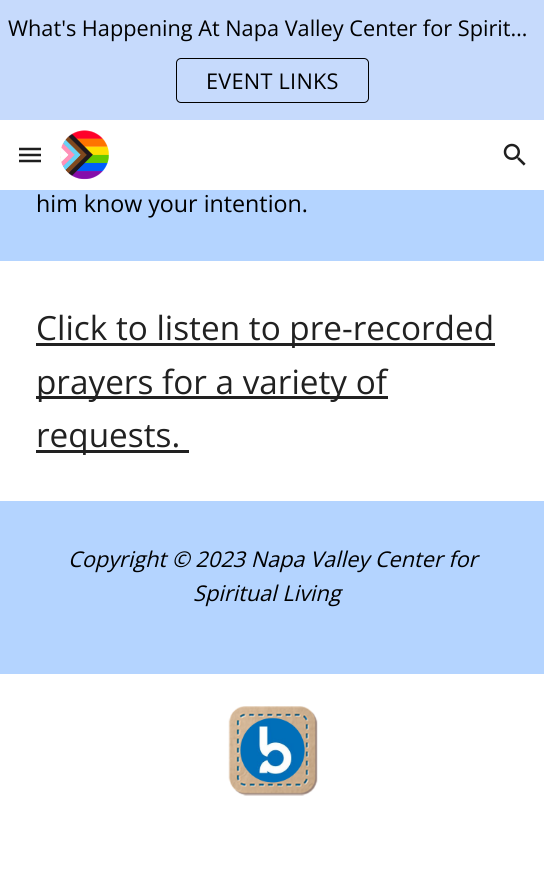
import math
import cairocffi as cairo

surface = cairo.ImageSurface(cairo.FORMAT_RGB24, 544, 879)
ctx = cairo.Context(surface)
options = cairo.FontOptions()
options.set_hint_metrics(cairo.HINT_METRICS_OFF)
options.set_hint_style(cairo.HINT_STYLE_NONE)
ctx.set_font_options(options)
ctx.set_miter_limit(4)


def rgb(r, g, b):
    ctx.set_source_rgb(r / 255, g / 255, b / 255)


def face(family, size, italic, bold):
    ctx.select_font_face(family, cairo.FONT_SLANT_ITALIC if italic else cairo.FONT_SLANT_NORMAL, cairo.FONT_WEIGHT_BOLD if bold else cairo.FONT_WEIGHT_NORMAL)
    ctx.set_font_size(size)


def label(x, y, s):
    ctx.move_to(x, y)
    ctx.show_text(s)


def tracked(x, y, s, letter, word):
    ctx.move_to(x, y)
    for ch in s:
        ctx.show_text(ch)
        ctx.rel_move_to(letter + word * (ch == ' '), 0)


def rect(x, y, w, h):
    ctx.rectangle(x, y, w, h)
    ctx.fill()


def rrect(x, y, w, h, r):
    ctx.new_sub_path()
    for i, (u, v) in enumerate([(x + w - r, y + h - r), (x + r, y + h - r), (x + r, y + r), (x + w - r, y + r)]):
        ctx.arc(u, v, r, i * math.pi / 2, (i + 1) * math.pi / 2)
    ctx.close_path()


def image(path, x, y, w, h):
    ctx.save()
    ctx.set_source_surface(cairo.ImageSurface.create_from_png(path), x, y)
    ctx.rectangle(x, y, w, h)
    ctx.fill()
    ctx.restore()


rgb(255, 255, 255)
ctx.paint()
rgb(198, 218, 252)
rect(0, 0, 544, 120)
face('Open Sans', 21.7, 0, 0)
rgb(0, 0, 0)
label(8, 36, 'What\'s Happening At Napa Valley Center for Spirit…')
rrect(176.5, 58.5, 192, 44, 4.5)
ctx.set_line_width(1)
ctx.stroke()
tracked(206, 89, 'EVENT LINKS', 0.25, 0)
ctx.new_path()
ctx.move_to(19, 149)
ctx.line_to(41, 149)
ctx.move_to(19, 155)
ctx.line_to(41, 155)
ctx.move_to(19, 161)
ctx.line_to(41, 161)
rgb(31, 31, 31)
ctx.set_line_width(2.5)
ctx.stroke()
image('image0.png', 60, 130, 49, 50)
image('image1.png', 503, 143, 23, 23)
rgb(180, 212, 255)
rect(0, 190, 544, 71)
face('Open Sans', 23.25, 0, 0)
rgb(0, 0, 0)
label(36, 212, 'him know your intention.')
rgb(33, 33, 33)
rect(36, 343, 459, 3)
face('Open Sans', 33.3, 0, 0)
label(36, 340, 'Click to listen to pre-recorded')
rect(36, 396, 352, 3)
label(36, 394, 'prayers for a variety of')
rect(36, 450, 153, 3)
label(36, 447, 'requests.')
rgb(180, 212, 255)
rect(0, 501, 544, 173)
face('Open Sans', 21.7, 1, 0)
rgb(0, 0, 0)
label(68, 567, 'Copyright © 2023 Napa Valley Center for')
label(193, 601, 'Spiritual Living')
image('image2.png', 228, 706, 90, 90)
surface.write_to_png('render.png')
